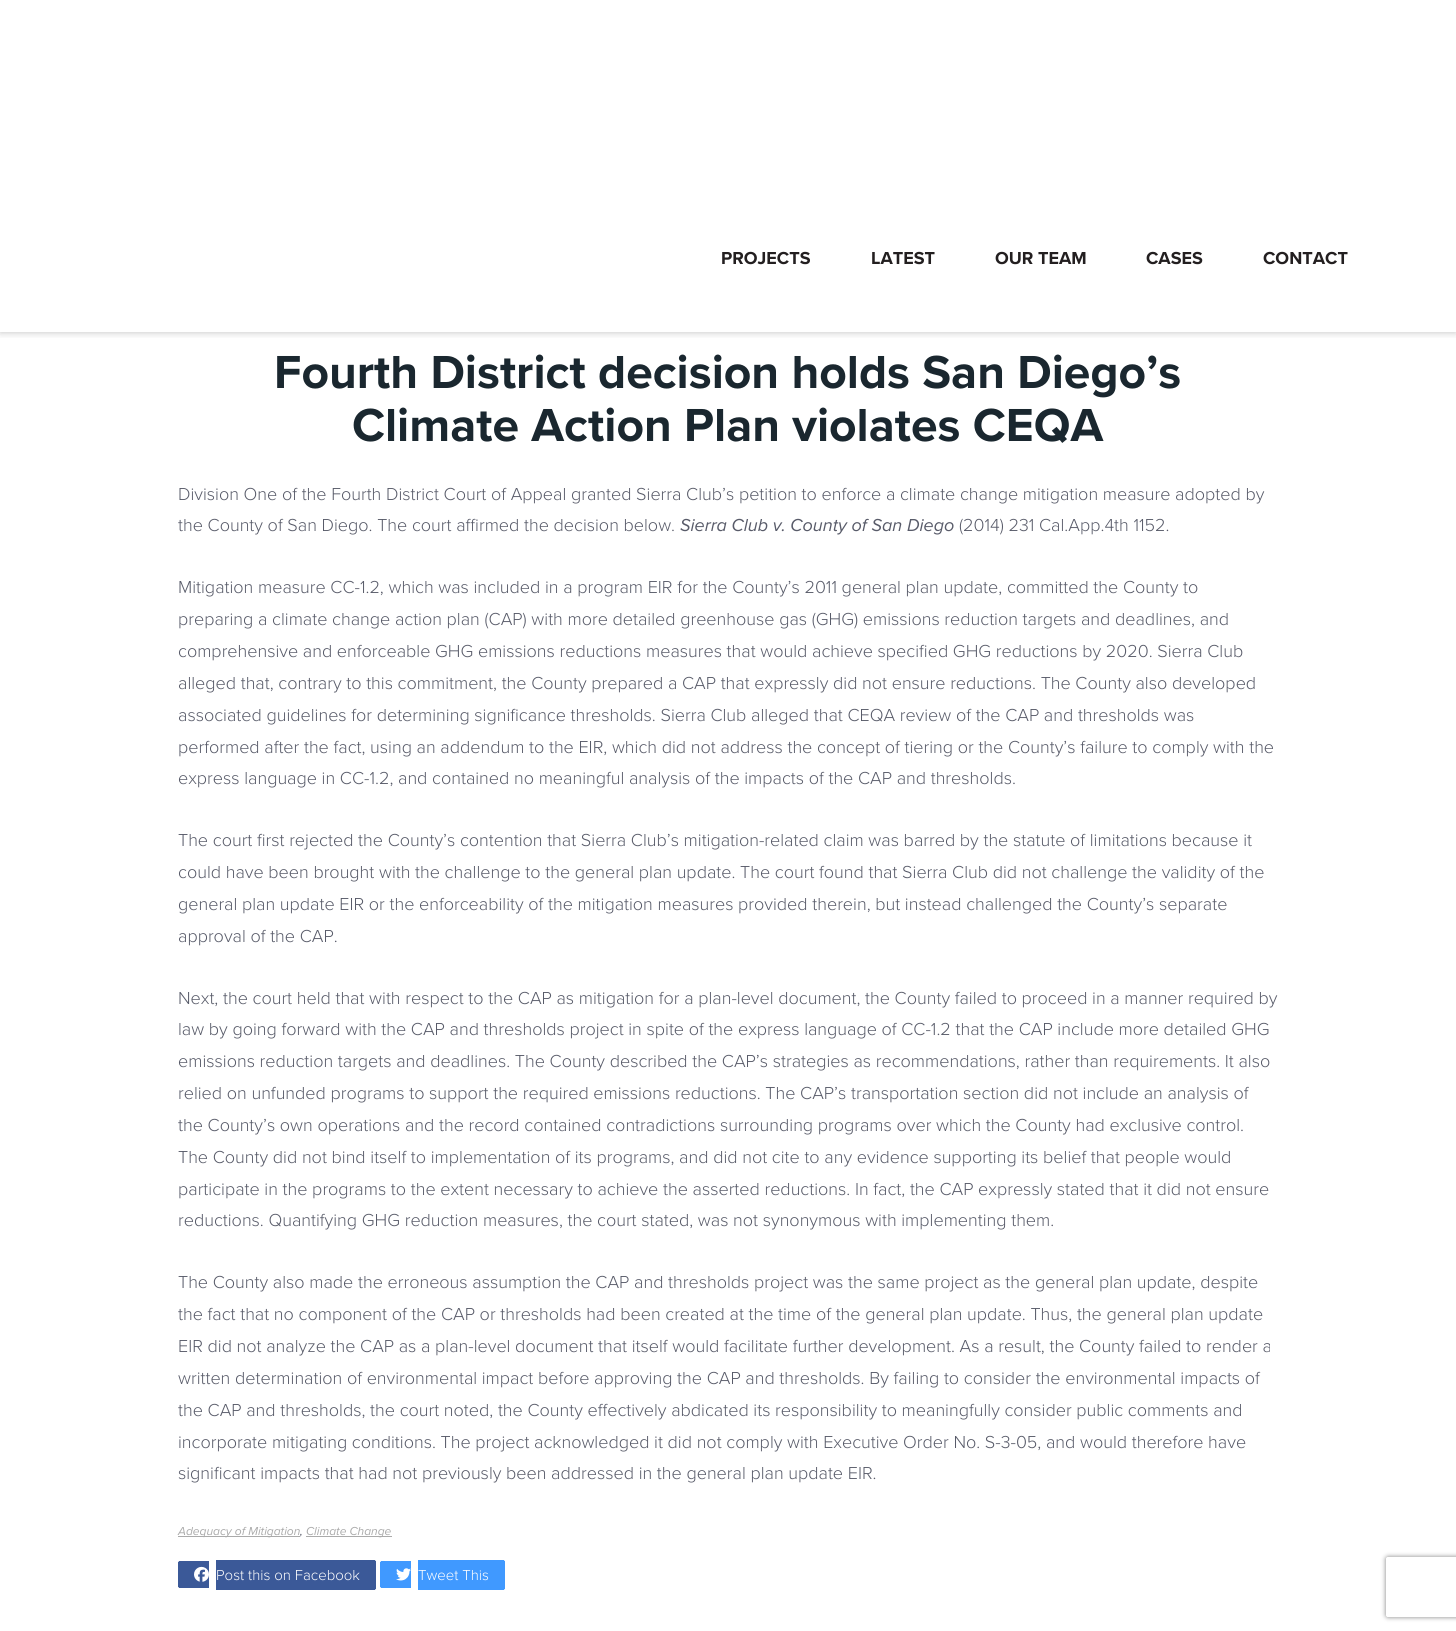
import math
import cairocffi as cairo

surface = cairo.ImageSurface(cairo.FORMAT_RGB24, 1456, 1631)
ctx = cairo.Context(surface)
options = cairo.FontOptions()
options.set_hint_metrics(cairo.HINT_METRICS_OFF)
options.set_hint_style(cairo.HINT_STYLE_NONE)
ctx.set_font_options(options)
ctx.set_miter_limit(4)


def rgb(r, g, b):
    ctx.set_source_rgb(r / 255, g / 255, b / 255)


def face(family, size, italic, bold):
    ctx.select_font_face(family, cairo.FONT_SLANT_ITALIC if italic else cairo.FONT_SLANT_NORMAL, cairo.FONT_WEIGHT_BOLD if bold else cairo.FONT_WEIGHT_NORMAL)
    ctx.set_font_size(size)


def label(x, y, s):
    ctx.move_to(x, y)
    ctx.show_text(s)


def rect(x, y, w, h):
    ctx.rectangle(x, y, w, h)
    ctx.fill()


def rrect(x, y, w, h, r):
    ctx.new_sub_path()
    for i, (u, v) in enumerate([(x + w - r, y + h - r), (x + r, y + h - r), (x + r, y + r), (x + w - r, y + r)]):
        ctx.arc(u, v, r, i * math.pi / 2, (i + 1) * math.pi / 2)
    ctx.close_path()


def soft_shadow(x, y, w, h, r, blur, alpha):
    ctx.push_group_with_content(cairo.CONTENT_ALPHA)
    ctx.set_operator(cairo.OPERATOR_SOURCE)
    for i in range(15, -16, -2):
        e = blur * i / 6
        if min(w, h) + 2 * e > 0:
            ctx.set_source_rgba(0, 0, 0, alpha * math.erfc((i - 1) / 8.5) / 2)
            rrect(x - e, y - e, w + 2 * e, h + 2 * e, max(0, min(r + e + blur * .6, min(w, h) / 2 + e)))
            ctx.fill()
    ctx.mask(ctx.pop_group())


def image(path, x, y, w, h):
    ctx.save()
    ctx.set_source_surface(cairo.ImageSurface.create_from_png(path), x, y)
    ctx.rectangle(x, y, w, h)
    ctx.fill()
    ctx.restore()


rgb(255, 255, 255)
ctx.paint()
ctx.save()
ctx.rectangle(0, 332, 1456, 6)
ctx.clip()
rgb(0, 0, 0)
soft_shadow(0, 0, 1456, 332, 0, 4, 0.25)
ctx.restore()
face('Proxima Nova', 18, 0, 1)
rgb(35, 31, 32)
label(721, 264, 'PROJECTS')
label(871, 264, 'LATEST')
label(995, 264, 'OUR TEAM')
label(1146, 264, 'CASES')
label(1263, 264, 'CONTACT')
face('Proxima Nova', 48, 0, 1)
rgb(26, 39, 47)
label(274, 388, 'Fourth District decision holds San Diego’s')
label(352, 441, 'Climate Action Plan violates CEQA')
face('Proxima Nova Light', 18, 0, 0)
rgb(88, 91, 105)
label(178, 500, 'Division One of the Fourth District Court of Appeal granted Sierra Club’s petition to enforce a climate change mitigation measure adopted by')
label(178, 531, 'the County of San Diego. The court affirmed the decision below.')
face('Proxima Nova', 18, 1, 0)
label(680, 531, 'Sierra Club v. County of San Diego')
face('Proxima Nova Light', 18, 0, 0)
label(959, 531, '(2014) 231 Cal.App.4th 1152.')
label(178, 593, 'Mitigation measure CC-1.2, which was included in a program EIR for the County’s 2011 general plan update, committed the County to')
label(178, 625, 'preparing a climate change action plan (CAP) with more detailed greenhouse gas (GHG) emissions reduction targets and deadlines, and')
label(178, 657, 'comprehensive and enforceable GHG emissions reductions measures that would achieve specified GHG reductions by 2020. Sierra Club')
label(178, 689, 'alleged that, contrary to this commitment, the County prepared a CAP that expressly did not ensure reductions. The County also developed')
label(178, 721, 'associated guidelines for determining significance thresholds. Sierra Club alleged that CEQA review of the CAP and thresholds was')
label(178, 753, 'performed after the fact, using an addendum to the EIR, which did not address the concept of tiering or the County’s failure to comply with the')
label(178, 784, 'express language in CC-1.2, and contained no meaningful analysis of the impacts of the CAP and thresholds.')
label(178, 846, 'The court first rejected the County’s contention that Sierra Club’s mitigation-related claim was barred by the statute of limitations because it')
label(178, 878, 'could have been brought with the challenge to the general plan update. The court found that Sierra Club did not challenge the validity of the')
label(178, 910, 'general plan update EIR or the enforceability of the mitigation measures provided therein, but instead challenged the County’s separate')
label(178, 942, 'approval of the CAP.')
label(178, 1004, 'Next, the court held that with respect to the CAP as mitigation for a plan-level document, the County failed to proceed in a manner required by')
label(178, 1035, 'law by going forward with the CAP and thresholds project in spite of the express language of CC-1.2 that the CAP include more detailed GHG')
label(178, 1067, 'emissions reduction targets and deadlines. The County described the CAP’s strategies as recommendations, rather than requirements. It also')
label(178, 1099, 'relied on unfunded programs to support the required emissions reductions. The CAP’s transportation section did not include an analysis of')
label(178, 1131, 'the County’s own operations and the record contained contradictions surrounding programs over which the County had exclusive control.')
label(178, 1163, 'The County did not bind itself to implementation of its programs, and did not cite to any evidence supporting its belief that people would')
label(178, 1195, 'participate in the programs to the extent necessary to achieve the asserted reductions. In fact, the CAP expressly stated that it did not ensure')
label(178, 1226, 'reductions. Quantifying GHG reduction measures, the court stated, was not synonymous with implementing them.')
label(178, 1288, 'The County also made the erroneous assumption the CAP and thresholds project was the same project as the general plan update, despite')
label(178, 1320, 'the fact that no component of the CAP or thresholds had been created at the time of the general plan update. Thus, the general plan update')
label(178, 1352, 'EIR did not analyze the CAP as a plan-level document that itself would facilitate further development. As a result, the County failed to render a')
label(178, 1384, 'written determination of environmental impact before approving the CAP and thresholds. By failing to consider the environmental impacts of')
label(178, 1416, 'the CAP and thresholds, the court noted, the County effectively abdicated its responsibility to meaningfully consider public comments and')
label(178, 1448, 'incorporate mitigating conditions. The project acknowledged it did not comply with Executive Order No. S-3-05, and would therefore have')
label(178, 1479, 'significant impacts that had not previously been addressed in the general plan update EIR.')
rgb(170, 170, 170)
rect(178, 1536, 122, 1)
face('Proxima Nova', 12, 1, 0)
label(178, 1535, 'Adequacy of Mitigation')
rgb(88, 91, 105)
label(300, 1535, ',')
rgb(170, 170, 170)
rect(306, 1536, 86, 1)
label(306, 1535, 'Climate Change')
rgb(59, 89, 152)
ctx.new_path()
ctx.move_to(180, 1561)
ctx.line_to(209, 1561)
ctx.line_to(209, 1588)
ctx.line_to(180, 1588)
ctx.curve_to(179, 1588, 178, 1587, 178, 1586)
ctx.line_to(178, 1563)
ctx.curve_to(178, 1562, 179, 1561, 180, 1561)
ctx.close_path()
ctx.fill()
rect(179, 1561, 1, 1)
rect(179, 1587, 1, 1)
rect(178, 1562, 1, 25)
ctx.new_path()
ctx.move_to(216, 1560)
ctx.line_to(374, 1560)
ctx.curve_to(375, 1560, 376, 1561, 376, 1562)
ctx.line_to(376, 1588)
ctx.curve_to(376, 1589, 375, 1590, 374, 1590)
ctx.line_to(216, 1590)
ctx.close_path()
ctx.fill()
rect(374, 1560, 1, 1)
rect(375, 1561, 1, 28)
rect(374, 1589, 1, 1)
image('image0.png', 194, 1566, 15, 16)
face('Proxima Nova Light', 15, 0, 0)
rgb(255, 255, 255)
label(216, 1580, 'Post this on Facebook')
rgb(64, 153, 255)
ctx.new_path()
ctx.move_to(382, 1561)
ctx.line_to(411, 1561)
ctx.line_to(411, 1588)
ctx.line_to(382, 1588)
ctx.curve_to(381, 1588, 380, 1587, 380, 1586)
ctx.line_to(380, 1563)
ctx.curve_to(380, 1562, 381, 1561, 382, 1561)
ctx.close_path()
ctx.fill()
rect(381, 1561, 1, 1)
rect(381, 1587, 1, 1)
rect(380, 1562, 1, 25)
ctx.new_path()
ctx.move_to(418, 1560)
ctx.line_to(503, 1560)
ctx.curve_to(504, 1560, 505, 1561, 505, 1562)
ctx.line_to(505, 1588)
ctx.curve_to(505, 1589, 504, 1590, 503, 1590)
ctx.line_to(418, 1590)
ctx.close_path()
ctx.fill()
rect(503, 1560, 1, 1)
rect(504, 1561, 1, 28)
rect(503, 1589, 1, 1)
image('image1.png', 396, 1568, 15, 13)
rgb(255, 255, 255)
label(418, 1580, 'Tweet This')
ctx.save()
ctx.set_fill_rule(cairo.FILL_RULE_EVEN_ODD)
ctx.new_path()
ctx.move_to(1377, 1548)
ctx.line_to(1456, 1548)
ctx.line_to(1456, 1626)
ctx.line_to(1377, 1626)
ctx.close_path()
ctx.move_to(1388, 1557)
ctx.line_to(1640, 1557)
ctx.curve_to(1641, 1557, 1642, 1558, 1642, 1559)
ctx.line_to(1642, 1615)
ctx.curve_to(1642, 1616, 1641, 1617, 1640, 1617)
ctx.line_to(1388, 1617)
ctx.curve_to(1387, 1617, 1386, 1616, 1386, 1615)
ctx.line_to(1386, 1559)
ctx.curve_to(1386, 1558, 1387, 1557, 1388, 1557)
ctx.close_path()
ctx.clip()
rgb(128, 128, 128)
soft_shadow(1386, 1557, 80, 60, 2, 2.5, 1)
ctx.restore()
surface.write_to_png('render.png')
